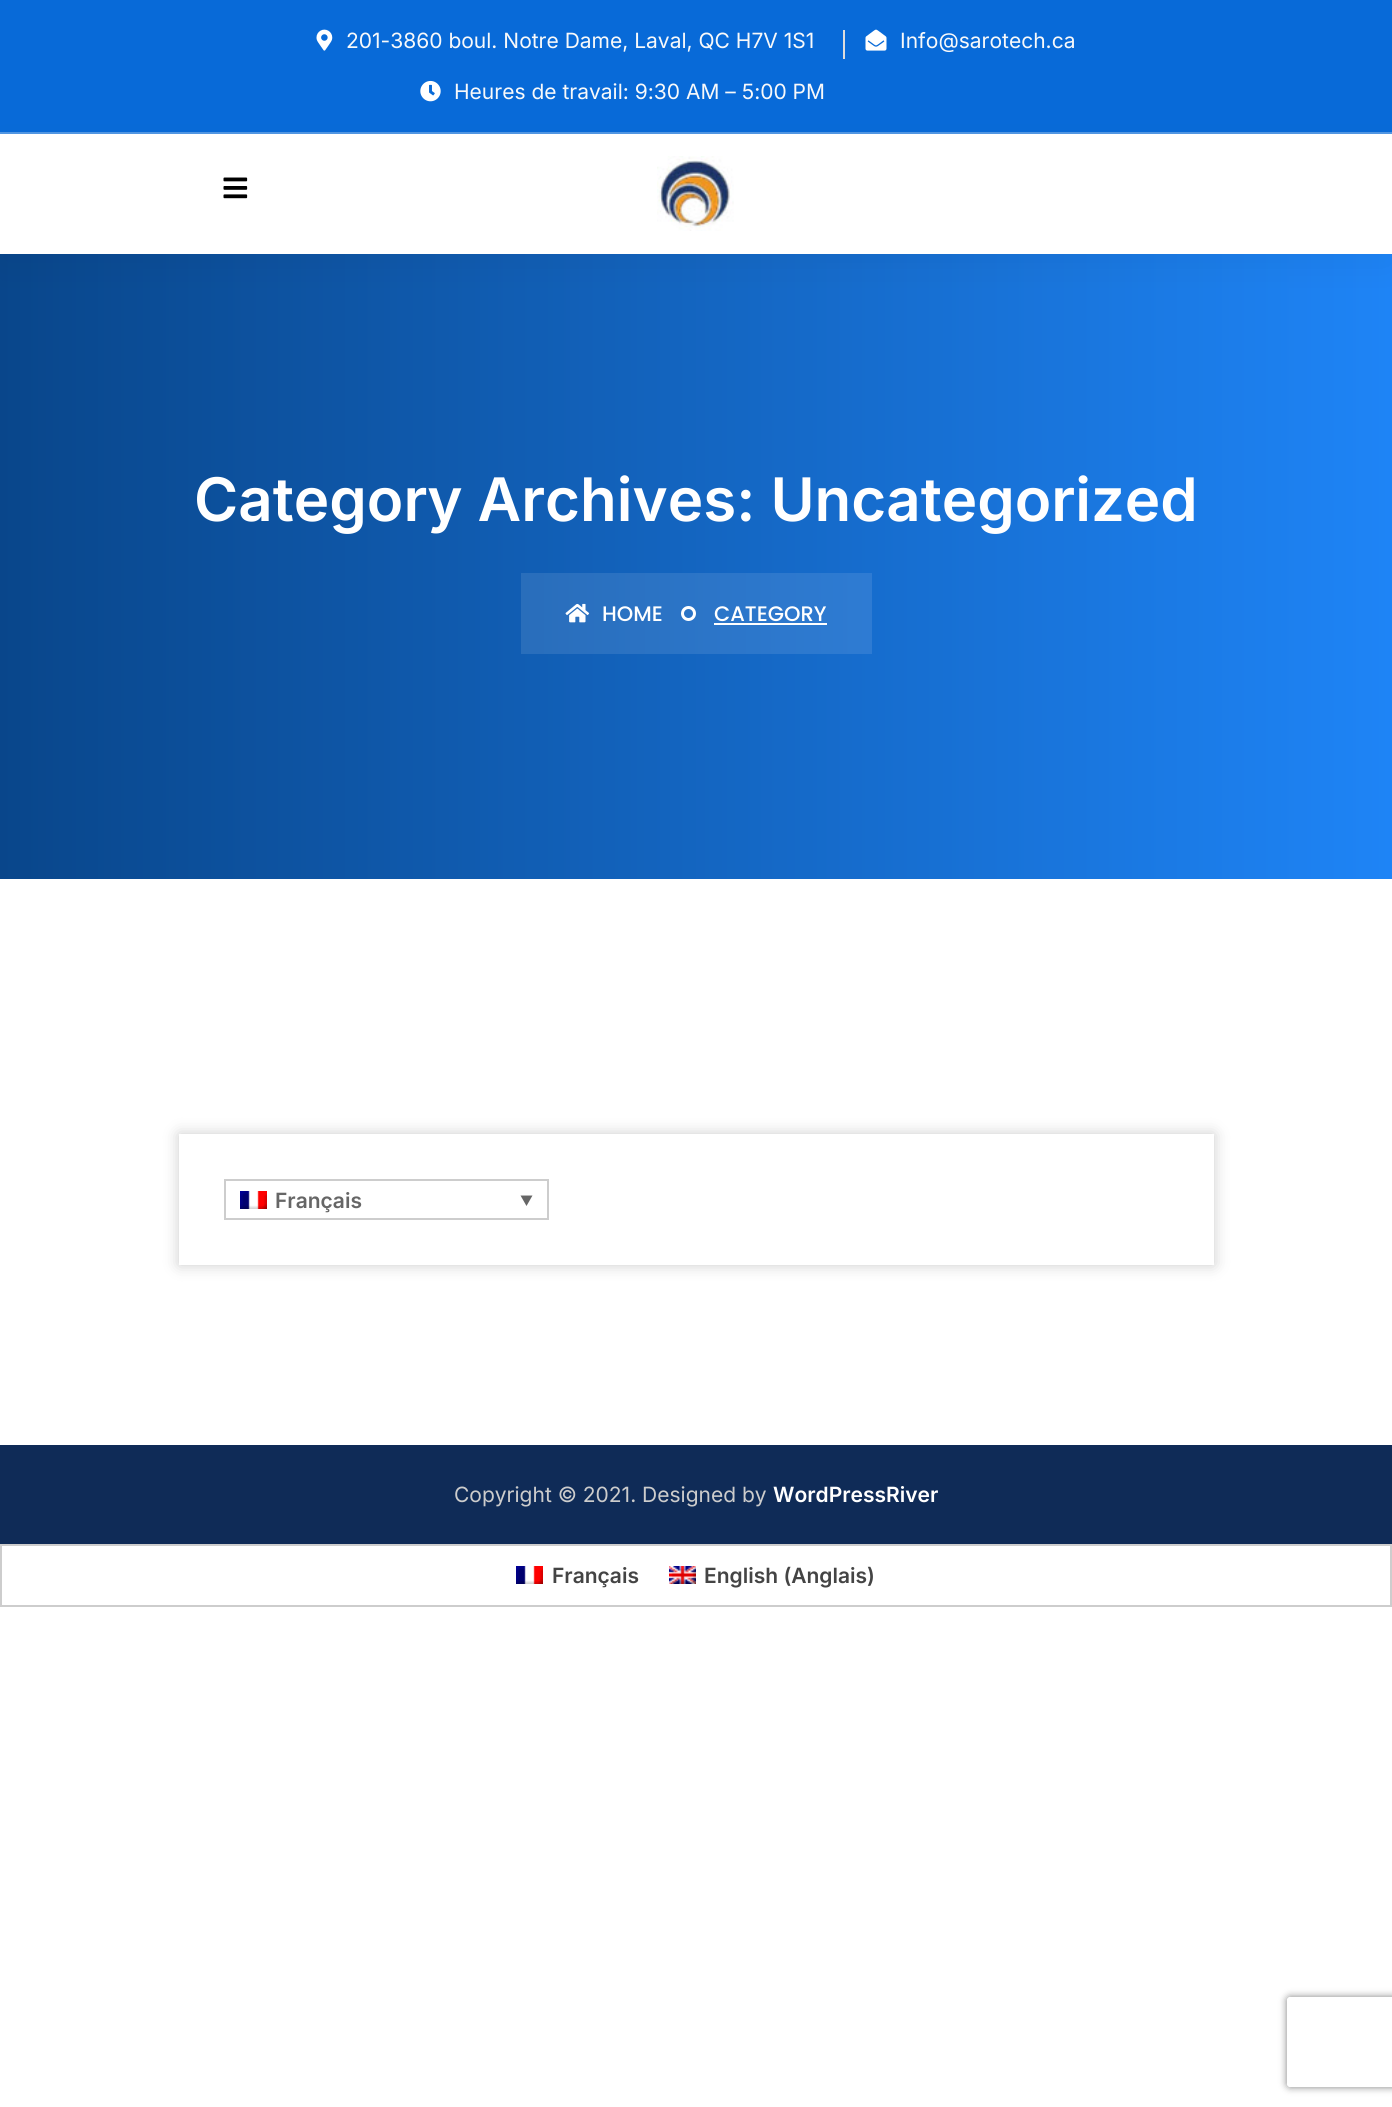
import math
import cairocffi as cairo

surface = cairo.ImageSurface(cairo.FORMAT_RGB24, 1392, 2107)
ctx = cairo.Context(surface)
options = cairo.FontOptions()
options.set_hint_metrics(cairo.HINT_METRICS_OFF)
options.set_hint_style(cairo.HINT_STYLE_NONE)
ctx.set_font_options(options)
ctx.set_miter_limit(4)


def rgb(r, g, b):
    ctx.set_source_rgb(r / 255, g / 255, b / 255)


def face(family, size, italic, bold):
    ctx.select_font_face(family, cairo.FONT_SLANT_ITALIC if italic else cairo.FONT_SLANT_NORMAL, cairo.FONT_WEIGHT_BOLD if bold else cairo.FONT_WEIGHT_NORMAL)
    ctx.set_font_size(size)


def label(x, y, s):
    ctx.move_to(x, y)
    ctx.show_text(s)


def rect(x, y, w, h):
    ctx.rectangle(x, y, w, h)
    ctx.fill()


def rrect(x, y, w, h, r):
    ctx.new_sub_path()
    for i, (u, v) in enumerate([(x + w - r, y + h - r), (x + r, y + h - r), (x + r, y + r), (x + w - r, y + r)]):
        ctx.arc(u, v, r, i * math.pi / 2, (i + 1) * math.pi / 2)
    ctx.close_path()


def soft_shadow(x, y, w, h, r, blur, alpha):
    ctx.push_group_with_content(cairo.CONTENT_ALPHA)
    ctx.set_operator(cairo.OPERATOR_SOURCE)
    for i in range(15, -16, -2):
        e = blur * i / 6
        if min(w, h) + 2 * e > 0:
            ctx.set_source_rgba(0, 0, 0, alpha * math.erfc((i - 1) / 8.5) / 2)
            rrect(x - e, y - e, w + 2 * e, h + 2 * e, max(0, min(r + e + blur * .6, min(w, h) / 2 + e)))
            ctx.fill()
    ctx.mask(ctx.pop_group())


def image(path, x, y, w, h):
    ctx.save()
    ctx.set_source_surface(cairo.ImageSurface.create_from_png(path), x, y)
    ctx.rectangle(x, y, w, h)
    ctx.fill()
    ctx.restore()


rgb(255, 255, 255)
ctx.paint()
rgb(8, 106, 216)
rect(0, 0, 1392, 132)
rgb(82, 151, 228)
rect(0, 132, 1392, 2)
image('image0.png', 316, 29, 17, 22)
face('Inter', 21, 0, 0)
rgb(248, 249, 250)
label(346, 48, '201-3860 boul. Notre Dame, Laval, QC H7V 1S1')
rgb(221, 221, 221)
rect(843, 30, 2, 29)
image('image1.png', 865, 29, 22, 22)
rgb(248, 249, 250)
label(900, 48, 'Info@sarotech.ca')
image('image2.png', 420, 80, 21, 22)
label(454, 99, 'Heures de travail: 9:30 AM – 5:00 PM')
gradient = cairo.LinearGradient(0, 1054, 1392, 1054)
gradient.add_color_stop_rgba(0, 0.035, 0.275, 0.545, 1)
gradient.add_color_stop_rgba(1, 0.118, 0.518, 0.965, 1)
ctx.set_source(gradient)
rect(0, 254, 1392, 625)
rgb(0, 0, 0)
soft_shadow(0, 146, 1392, 120, 0, 19, 0.04)
rgb(255, 255, 255)
rect(0, 134, 1392, 120)
image('image3.png', 223, 177, 25, 22)
image('image4.png', 657, 156, 77, 75)
gradient = cairo.LinearGradient(0, 1054, 1392, 1054)
gradient.add_color_stop_rgba(0, 0.133, 0.349, 0.592, 1)
gradient.add_color_stop_rgba(1, 0.208, 0.565, 0.969, 1)
ctx.set_source(gradient)
rect(521, 573, 351, 81)
face('Inter SemiBold', 60, 0, 0)
rgb(255, 255, 255)
label(194, 521, 'Category Archives: Uncategorized')
image('image5.png', 565, 603, 25, 20)
face('Poppins Medium', 21, 0, 0)
label(602, 621, 'HOME')
ctx.new_path()
ctx.arc(688.5, 613.5, 6, 0, 2 * math.pi)
ctx.set_line_width(3)
ctx.stroke()
label(714, 621, 'CATEGORY')
rect(714, 623, 113, 2)
rgb(204, 204, 204)
soft_shadow(179, 1134, 1035, 131, 0, 7.5, 1)
rgb(255, 255, 255)
rect(179, 1134, 1035, 131)
ctx.rectangle(225, 1180, 323, 39)
rgb(205, 205, 205)
ctx.set_line_width(2)
ctx.stroke()
image('image6.png', 240, 1191, 27, 18)
face('Inter SemiBold', 21, 0, 0)
rgb(102, 102, 102)
label(275, 1208, 'Français')
ctx.new_path()
ctx.move_to(520.5, 1195.5)
ctx.line_to(532.5, 1195.5)
ctx.line_to(526.5, 1206)
ctx.close_path()
ctx.fill()
rgb(15, 43, 87)
rect(0, 1445, 1392, 99)
face('Inter', 21, 0, 0)
rgb(204, 204, 204)
label(454, 1502, 'Copyright © 2021. Designed by')
face('Inter SemiBold', 21, 0, 0)
rgb(255, 255, 255)
label(773, 1502, 'WordPressRiver')
ctx.rectangle(1, 1545, 1390, 61)
rgb(205, 205, 205)
ctx.stroke()
image('image6.png', 516, 1566, 27, 18)
rgb(68, 68, 68)
label(552, 1583, 'Français')
image('image7.png', 669, 1566, 27, 18)
label(704, 1583, 'English (Anglais)')
ctx.save()
ctx.set_fill_rule(cairo.FILL_RULE_EVEN_ODD)
ctx.new_path()
ctx.move_to(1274, 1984)
ctx.line_to(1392, 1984)
ctx.line_to(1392, 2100)
ctx.line_to(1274, 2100)
ctx.close_path()
ctx.move_to(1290, 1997)
ctx.line_to(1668, 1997)
ctx.curve_to(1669.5, 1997, 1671, 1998.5, 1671, 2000)
ctx.line_to(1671, 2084)
ctx.curve_to(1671, 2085.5, 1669.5, 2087, 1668, 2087)
ctx.line_to(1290, 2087)
ctx.curve_to(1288.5, 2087, 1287, 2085.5, 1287, 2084)
ctx.line_to(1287, 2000)
ctx.curve_to(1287, 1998.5, 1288.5, 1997, 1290, 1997)
ctx.close_path()
ctx.clip()
rgb(128, 128, 128)
soft_shadow(1287, 1997, 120, 90, 3, 4, 1)
ctx.restore()
surface.write_to_png('render.png')
